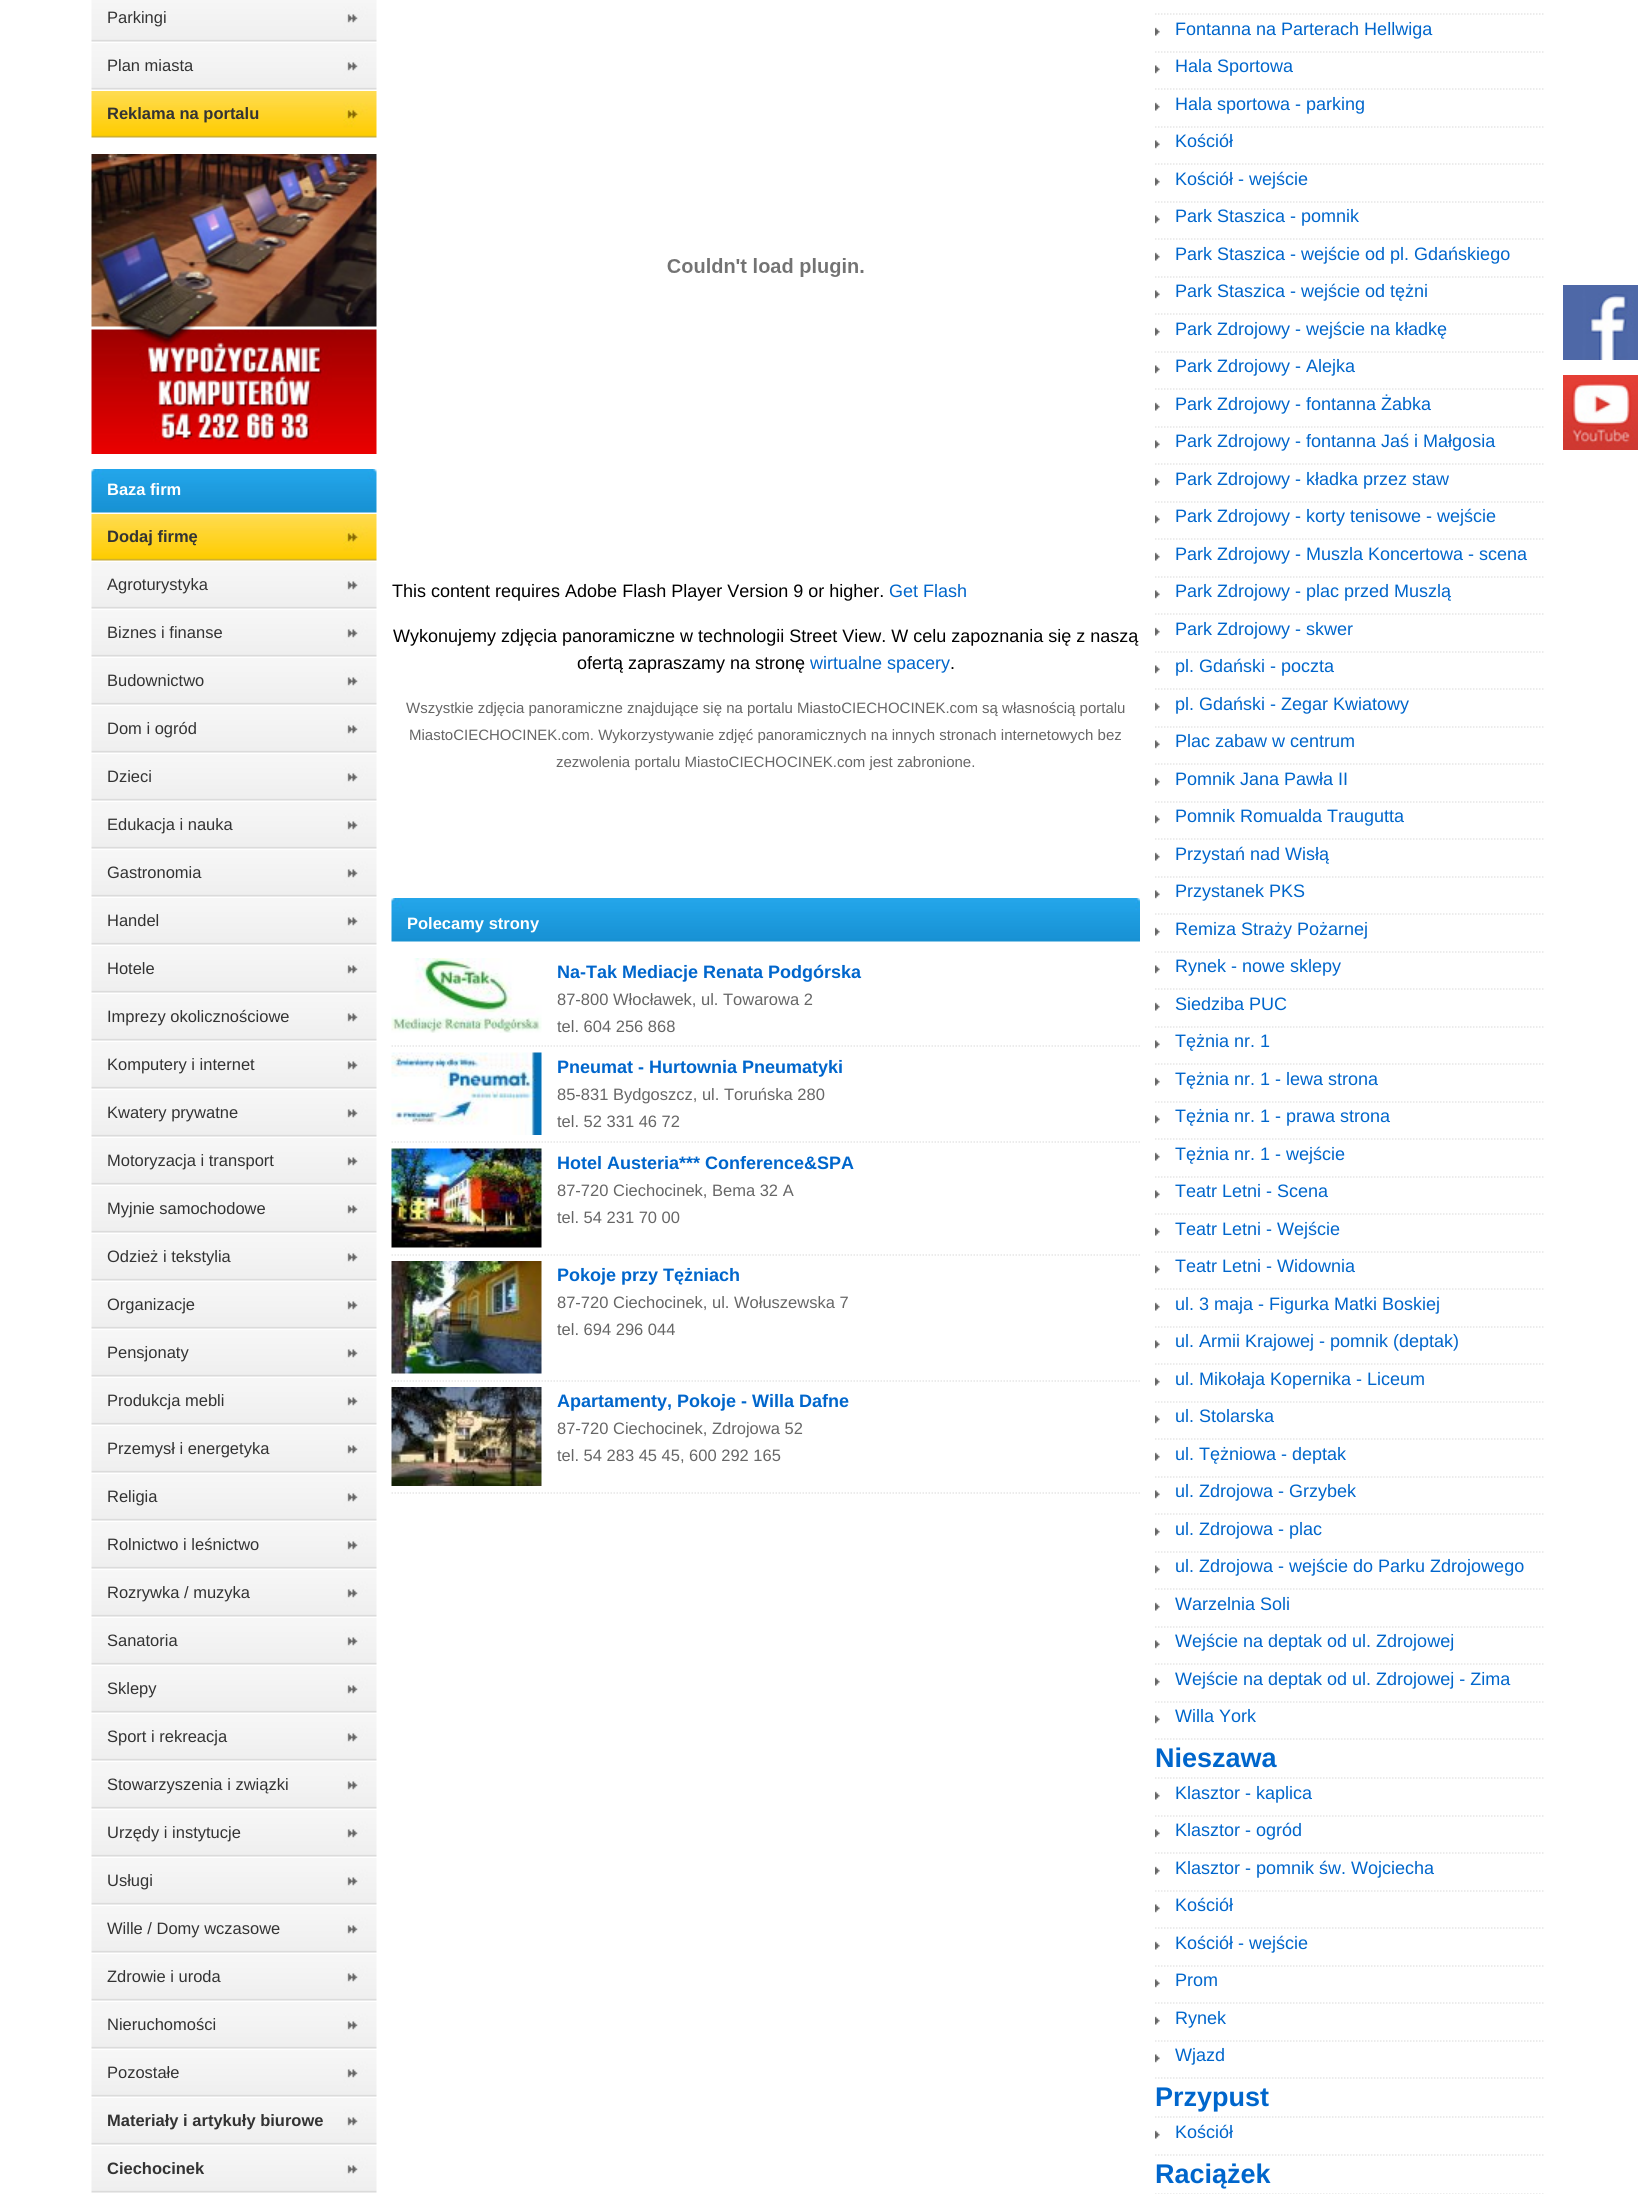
import math
import cairocffi as cairo

surface = cairo.ImageSurface(cairo.FORMAT_RGB24, 1638, 2194)
ctx = cairo.Context(surface)
options = cairo.FontOptions()
options.set_hint_metrics(cairo.HINT_METRICS_OFF)
options.set_hint_style(cairo.HINT_STYLE_NONE)
ctx.set_font_options(options)
ctx.set_miter_limit(4)


def rgb(r, g, b):
    ctx.set_source_rgb(r / 255, g / 255, b / 255)


def face(family, size, italic, bold):
    ctx.select_font_face(family, cairo.FONT_SLANT_ITALIC if italic else cairo.FONT_SLANT_NORMAL, cairo.FONT_WEIGHT_BOLD if bold else cairo.FONT_WEIGHT_NORMAL)
    ctx.set_font_size(size)


def label(x, y, s):
    ctx.move_to(x, y)
    ctx.show_text(s)


def image(path, x, y, w, h):
    ctx.save()
    ctx.set_source_surface(cairo.ImageSurface.create_from_png(path), x, y)
    ctx.rectangle(x, y, w, h)
    ctx.fill()
    ctx.restore()


rgb(255, 255, 255)
ctx.paint()
image('image0.png', 91, 0, 286, 42)
face('Liberation Sans', 16.5, 0, 0)
rgb(51, 51, 51)
label(107, 23, 'Parkingi')
image('image1.png', 91, 43, 286, 47)
label(107, 71, 'Plan miasta')
image('image2.png', 91, 91, 286, 47)
face('Liberation Sans', 16.5, 0, 1)
label(107, 119, 'Reklama na portalu')
image('image3.png', 91, 154, 286, 300)
image('image4.png', 91, 469, 286, 44)
rgb(255, 255, 255)
label(107, 495, 'Baza firm')
image('image2.png', 91, 514, 286, 47)
rgb(51, 51, 51)
label(107, 542, 'Dodaj firmę')
image('image1.png', 91, 562, 286, 47)
face('Liberation Sans', 16.5, 0, 0)
label(107, 590, 'Agroturystyka')
image('image1.png', 91, 610, 286, 47)
label(107, 638, 'Biznes i finanse')
image('image1.png', 91, 658, 286, 47)
label(107, 686, 'Budownictwo')
image('image1.png', 91, 706, 286, 47)
label(107, 734, 'Dom i ogród')
image('image1.png', 91, 754, 286, 47)
label(107, 782, 'Dzieci')
image('image1.png', 91, 802, 286, 47)
label(107, 830, 'Edukacja i nauka')
image('image1.png', 91, 850, 286, 47)
label(107, 878, 'Gastronomia')
image('image1.png', 91, 898, 286, 47)
label(107, 926, 'Handel')
image('image1.png', 91, 946, 286, 47)
label(107, 974, 'Hotele')
image('image1.png', 91, 994, 286, 47)
label(107, 1022, 'Imprezy okolicznościowe')
image('image1.png', 91, 1042, 286, 47)
label(107, 1070, 'Komputery i internet')
image('image1.png', 91, 1090, 286, 47)
label(107, 1118, 'Kwatery prywatne')
image('image1.png', 91, 1138, 286, 47)
label(107, 1166, 'Motoryzacja i transport')
image('image1.png', 91, 1186, 286, 47)
label(107, 1214, 'Myjnie samochodowe')
image('image1.png', 91, 1234, 286, 47)
label(107, 1262, 'Odzież i tekstylia')
image('image1.png', 91, 1282, 286, 47)
label(107, 1310, 'Organizacje')
image('image1.png', 91, 1330, 286, 47)
label(107, 1358, 'Pensjonaty')
image('image1.png', 91, 1378, 286, 47)
label(107, 1406, 'Produkcja mebli')
image('image1.png', 91, 1426, 286, 47)
label(107, 1454, 'Przemysł i energetyka')
image('image1.png', 91, 1474, 286, 47)
label(107, 1502, 'Religia')
image('image1.png', 91, 1522, 286, 47)
label(107, 1550, 'Rolnictwo i leśnictwo')
image('image1.png', 91, 1570, 286, 47)
label(107, 1598, 'Rozrywka / muzyka')
image('image1.png', 91, 1618, 286, 47)
label(107, 1646, 'Sanatoria')
image('image1.png', 91, 1666, 286, 47)
label(107, 1694, 'Sklepy')
image('image1.png', 91, 1714, 286, 47)
label(107, 1742, 'Sport i rekreacja')
image('image1.png', 91, 1762, 286, 47)
label(107, 1790, 'Stowarzyszenia i związki')
image('image1.png', 91, 1810, 286, 47)
label(107, 1838, 'Urzędy i instytucje')
image('image1.png', 91, 1858, 286, 47)
label(107, 1886, 'Usługi')
image('image1.png', 91, 1906, 286, 47)
label(107, 1934, 'Wille / Domy wczasowe')
image('image1.png', 91, 1954, 286, 47)
label(107, 1982, 'Zdrowie i uroda')
image('image1.png', 91, 2002, 286, 47)
label(107, 2030, 'Nieruchomości')
image('image1.png', 91, 2050, 286, 47)
label(107, 2078, 'Pozostałe')
image('image1.png', 91, 2098, 286, 47)
face('Liberation Sans', 16.5, 0, 1)
label(107, 2126, 'Materiały i artykuły biurowe')
image('image1.png', 91, 2146, 286, 47)
label(107, 2174, 'Ciechocinek')
image('image5.png', 667, 258, 197, 19)
face('Liberation Sans', 18, 0, 0)
rgb(0, 0, 0)
label(392, 597, 'This content requires Adobe Flash Player Version 9 or higher.')
rgb(0, 102, 204)
label(889, 597, 'Get Flash')
rgb(0, 0, 0)
label(393, 642, 'Wykonujemy zdjęcia panoramiczne w technologii Street View. W celu zapoznania się z naszą')
label(577, 669, 'ofertą zapraszamy na stronę')
rgb(0, 102, 204)
label(810, 669, 'wirtualne spacery')
rgb(0, 0, 0)
label(950, 669, '.')
face('Liberation Sans', 15, 0, 0)
rgb(102, 102, 102)
label(406, 713, 'Wszystkie zdjęcia panoramiczne znajdujące się na portalu MiastoCIECHOCINEK.com są własnością portalu')
label(409, 740, 'MiastoCIECHOCINEK.com. Wykorzystywanie zdjęć panoramicznych na innych stronach internetowych bez')
label(556, 767, 'zezwolenia portalu MiastoCIECHOCINEK.com jest zabronione.')
image('image6.png', 391, 898, 749, 44)
face('Liberation Sans', 16.5, 0, 1)
rgb(255, 255, 255)
label(407, 929, 'Polecamy strony')
ctx.new_path()
ctx.move_to(391.5, 1046)
ctx.line_to(1140, 1046)
rgb(230, 230, 230)
ctx.set_line_width(1.5)
ctx.set_dash([1.5, 1.5])
ctx.stroke()
image('image7.png', 391, 958, 151, 75)
face('Liberation Sans', 18, 0, 1)
rgb(0, 102, 204)
label(557, 978, 'Na-Tak Mediacje Renata Podgórska')
face('Liberation Sans', 16.5, 0, 0)
rgb(102, 102, 102)
label(557, 1005, '87-800 Włocławek, ul. Towarowa 2')
label(557, 1032, 'tel. 604 256 868')
ctx.new_path()
ctx.move_to(391.5, 1142)
ctx.line_to(1140, 1142)
rgb(230, 230, 230)
ctx.stroke()
image('image8.png', 391, 1052, 151, 83)
face('Liberation Sans', 18, 0, 1)
rgb(0, 102, 204)
label(557, 1073, 'Pneumat - Hurtownia Pneumatyki')
face('Liberation Sans', 16.5, 0, 0)
rgb(102, 102, 102)
label(557, 1100, '85-831 Bydgoszcz, ul. Toruńska 280')
label(557, 1127, 'tel. 52 331 46 72')
ctx.new_path()
ctx.move_to(391.5, 1255)
ctx.line_to(1140, 1255)
rgb(230, 230, 230)
ctx.stroke()
image('image9.png', 391, 1148, 151, 100)
face('Liberation Sans', 18, 0, 1)
rgb(0, 102, 204)
label(557, 1169, 'Hotel Austeria*** Conference&SPA')
face('Liberation Sans', 16.5, 0, 0)
rgb(102, 102, 102)
label(557, 1196, '87-720 Ciechocinek, Bema 32 A')
label(557, 1223, 'tel. 54 231 70 00')
ctx.new_path()
ctx.move_to(391.5, 1381)
ctx.line_to(1140, 1381)
rgb(230, 230, 230)
ctx.stroke()
image('image10.png', 391, 1261, 151, 113)
face('Liberation Sans', 18, 0, 1)
rgb(0, 102, 204)
label(557, 1281, 'Pokoje przy Tężniach')
face('Liberation Sans', 16.5, 0, 0)
rgb(102, 102, 102)
label(557, 1308, '87-720 Ciechocinek, ul. Wołuszewska 7')
label(557, 1335, 'tel. 694 296 044')
ctx.new_path()
ctx.move_to(391.5, 1493)
ctx.line_to(1140, 1493)
rgb(230, 230, 230)
ctx.stroke()
image('image11.png', 391, 1387, 151, 99)
face('Liberation Sans', 18, 0, 1)
rgb(0, 102, 204)
label(557, 1407, 'Apartamenty, Pokoje - Willa Dafne')
face('Liberation Sans', 16.5, 0, 0)
rgb(102, 102, 102)
label(557, 1434, '87-720 Ciechocinek, Zdrojowa 52')
label(557, 1461, 'tel. 54 283 45 45, 600 292 165')
ctx.new_path()
ctx.move_to(1155, 14)
ctx.line_to(1545, 14)
rgb(230, 230, 230)
ctx.stroke()
ctx.new_path()
ctx.move_to(1155, 52)
ctx.line_to(1545, 52)
ctx.stroke()
image('image12.png', 1155, 27, 5, 9)
face('Liberation Sans', 18, 0, 0)
rgb(0, 102, 204)
label(1175, 35, 'Fontanna na Parterach Hellwiga')
ctx.new_path()
ctx.move_to(1155, 89)
ctx.line_to(1545, 89)
rgb(230, 230, 230)
ctx.stroke()
image('image13.png', 1155, 65, 5, 9)
rgb(0, 102, 204)
label(1175, 72, 'Hala Sportowa')
ctx.new_path()
ctx.move_to(1155, 127)
ctx.line_to(1545, 127)
rgb(230, 230, 230)
ctx.stroke()
image('image12.png', 1155, 102, 5, 9)
rgb(0, 102, 204)
label(1175, 110, 'Hala sportowa - parking')
ctx.new_path()
ctx.move_to(1155, 164)
ctx.line_to(1545, 164)
rgb(230, 230, 230)
ctx.stroke()
image('image13.png', 1155, 140, 5, 9)
rgb(0, 102, 204)
label(1175, 147, 'Kościół')
ctx.new_path()
ctx.move_to(1155, 202)
ctx.line_to(1545, 202)
rgb(230, 230, 230)
ctx.stroke()
image('image12.png', 1155, 177, 5, 9)
rgb(0, 102, 204)
label(1175, 185, 'Kościół - wejście')
ctx.new_path()
ctx.move_to(1155, 239)
ctx.line_to(1545, 239)
rgb(230, 230, 230)
ctx.stroke()
image('image13.png', 1155, 215, 5, 9)
rgb(0, 102, 204)
label(1175, 222, 'Park Staszica - pomnik')
ctx.new_path()
ctx.move_to(1155, 277)
ctx.line_to(1545, 277)
rgb(230, 230, 230)
ctx.stroke()
image('image12.png', 1155, 252, 5, 9)
rgb(0, 102, 204)
label(1175, 260, 'Park Staszica - wejście od pl. Gdańskiego')
ctx.new_path()
ctx.move_to(1155, 314)
ctx.line_to(1545, 314)
rgb(230, 230, 230)
ctx.stroke()
image('image13.png', 1155, 290, 5, 9)
rgb(0, 102, 204)
label(1175, 297, 'Park Staszica - wejście od tężni')
ctx.new_path()
ctx.move_to(1155, 352)
ctx.line_to(1545, 352)
rgb(230, 230, 230)
ctx.stroke()
image('image12.png', 1155, 327, 5, 9)
rgb(0, 102, 204)
label(1175, 335, 'Park Zdrojowy - wejście na kładkę')
ctx.new_path()
ctx.move_to(1155, 389)
ctx.line_to(1545, 389)
rgb(230, 230, 230)
ctx.stroke()
image('image13.png', 1155, 365, 5, 9)
rgb(0, 102, 204)
label(1175, 372, 'Park Zdrojowy - Alejka')
ctx.new_path()
ctx.move_to(1155, 427)
ctx.line_to(1545, 427)
rgb(230, 230, 230)
ctx.stroke()
image('image12.png', 1155, 402, 5, 9)
rgb(0, 102, 204)
label(1175, 410, 'Park Zdrojowy - fontanna Żabka')
ctx.new_path()
ctx.move_to(1155, 464)
ctx.line_to(1545, 464)
rgb(230, 230, 230)
ctx.stroke()
image('image13.png', 1155, 440, 5, 9)
rgb(0, 102, 204)
label(1175, 447, 'Park Zdrojowy - fontanna Jaś i Małgosia')
ctx.new_path()
ctx.move_to(1155, 502)
ctx.line_to(1545, 502)
rgb(230, 230, 230)
ctx.stroke()
image('image12.png', 1155, 477, 5, 9)
rgb(0, 102, 204)
label(1175, 485, 'Park Zdrojowy - kładka przez staw')
ctx.new_path()
ctx.move_to(1155, 539)
ctx.line_to(1545, 539)
rgb(230, 230, 230)
ctx.stroke()
image('image13.png', 1155, 515, 5, 9)
rgb(0, 102, 204)
label(1175, 522, 'Park Zdrojowy - korty tenisowe - wejście')
ctx.new_path()
ctx.move_to(1155, 577)
ctx.line_to(1545, 577)
rgb(230, 230, 230)
ctx.stroke()
image('image12.png', 1155, 552, 5, 9)
rgb(0, 102, 204)
label(1175, 560, 'Park Zdrojowy - Muszla Koncertowa - scena')
ctx.new_path()
ctx.move_to(1155, 614)
ctx.line_to(1545, 614)
rgb(230, 230, 230)
ctx.stroke()
image('image13.png', 1155, 590, 5, 9)
rgb(0, 102, 204)
label(1175, 597, 'Park Zdrojowy - plac przed Muszlą')
ctx.new_path()
ctx.move_to(1155, 652)
ctx.line_to(1545, 652)
rgb(230, 230, 230)
ctx.stroke()
image('image12.png', 1155, 627, 5, 9)
rgb(0, 102, 204)
label(1175, 635, 'Park Zdrojowy - skwer')
ctx.new_path()
ctx.move_to(1155, 689)
ctx.line_to(1545, 689)
rgb(230, 230, 230)
ctx.stroke()
image('image13.png', 1155, 665, 5, 9)
rgb(0, 102, 204)
label(1175, 672, 'pl. Gdański - poczta')
ctx.new_path()
ctx.move_to(1155, 727)
ctx.line_to(1545, 727)
rgb(230, 230, 230)
ctx.stroke()
image('image12.png', 1155, 702, 5, 9)
rgb(0, 102, 204)
label(1175, 710, 'pl. Gdański - Zegar Kwiatowy')
ctx.new_path()
ctx.move_to(1155, 764)
ctx.line_to(1545, 764)
rgb(230, 230, 230)
ctx.stroke()
image('image13.png', 1155, 740, 5, 9)
rgb(0, 102, 204)
label(1175, 747, 'Plac zabaw w centrum')
ctx.new_path()
ctx.move_to(1155, 802)
ctx.line_to(1545, 802)
rgb(230, 230, 230)
ctx.stroke()
image('image12.png', 1155, 777, 5, 9)
rgb(0, 102, 204)
label(1175, 785, 'Pomnik Jana Pawła II')
ctx.new_path()
ctx.move_to(1155, 839)
ctx.line_to(1545, 839)
rgb(230, 230, 230)
ctx.stroke()
image('image13.png', 1155, 815, 5, 9)
rgb(0, 102, 204)
label(1175, 822, 'Pomnik Romualda Traugutta')
ctx.new_path()
ctx.move_to(1155, 877)
ctx.line_to(1545, 877)
rgb(230, 230, 230)
ctx.stroke()
image('image12.png', 1155, 852, 5, 9)
rgb(0, 102, 204)
label(1175, 860, 'Przystań nad Wisłą')
ctx.new_path()
ctx.move_to(1155, 914)
ctx.line_to(1545, 914)
rgb(230, 230, 230)
ctx.stroke()
image('image13.png', 1155, 890, 5, 9)
rgb(0, 102, 204)
label(1175, 897, 'Przystanek PKS')
ctx.new_path()
ctx.move_to(1155, 952)
ctx.line_to(1545, 952)
rgb(230, 230, 230)
ctx.stroke()
image('image12.png', 1155, 927, 5, 9)
rgb(0, 102, 204)
label(1175, 935, 'Remiza Straży Pożarnej')
ctx.new_path()
ctx.move_to(1155, 989)
ctx.line_to(1545, 989)
rgb(230, 230, 230)
ctx.stroke()
image('image13.png', 1155, 965, 5, 9)
rgb(0, 102, 204)
label(1175, 972, 'Rynek - nowe sklepy')
ctx.new_path()
ctx.move_to(1155, 1027)
ctx.line_to(1545, 1027)
rgb(230, 230, 230)
ctx.stroke()
image('image12.png', 1155, 1002, 5, 9)
rgb(0, 102, 204)
label(1175, 1010, 'Siedziba PUC')
ctx.new_path()
ctx.move_to(1155, 1064)
ctx.line_to(1545, 1064)
rgb(230, 230, 230)
ctx.stroke()
image('image13.png', 1155, 1040, 5, 9)
rgb(0, 102, 204)
label(1175, 1047, 'Tężnia nr. 1')
ctx.new_path()
ctx.move_to(1155, 1102)
ctx.line_to(1545, 1102)
rgb(230, 230, 230)
ctx.stroke()
image('image12.png', 1155, 1077, 5, 9)
rgb(0, 102, 204)
label(1175, 1085, 'Tężnia nr. 1 - lewa strona')
ctx.new_path()
ctx.move_to(1155, 1139)
ctx.line_to(1545, 1139)
rgb(230, 230, 230)
ctx.stroke()
image('image13.png', 1155, 1115, 5, 9)
rgb(0, 102, 204)
label(1175, 1122, 'Tężnia nr. 1 - prawa strona')
ctx.new_path()
ctx.move_to(1155, 1177)
ctx.line_to(1545, 1177)
rgb(230, 230, 230)
ctx.stroke()
image('image12.png', 1155, 1152, 5, 9)
rgb(0, 102, 204)
label(1175, 1160, 'Tężnia nr. 1 - wejście')
ctx.new_path()
ctx.move_to(1155, 1214)
ctx.line_to(1545, 1214)
rgb(230, 230, 230)
ctx.stroke()
image('image13.png', 1155, 1190, 5, 9)
rgb(0, 102, 204)
label(1175, 1197, 'Teatr Letni - Scena')
ctx.new_path()
ctx.move_to(1155, 1252)
ctx.line_to(1545, 1252)
rgb(230, 230, 230)
ctx.stroke()
image('image12.png', 1155, 1227, 5, 9)
rgb(0, 102, 204)
label(1175, 1235, 'Teatr Letni - Wejście')
ctx.new_path()
ctx.move_to(1155, 1289)
ctx.line_to(1545, 1289)
rgb(230, 230, 230)
ctx.stroke()
image('image13.png', 1155, 1265, 5, 9)
rgb(0, 102, 204)
label(1175, 1272, 'Teatr Letni - Widownia')
ctx.new_path()
ctx.move_to(1155, 1327)
ctx.line_to(1545, 1327)
rgb(230, 230, 230)
ctx.stroke()
image('image12.png', 1155, 1302, 5, 9)
rgb(0, 102, 204)
label(1175, 1310, 'ul. 3 maja - Figurka Matki Boskiej')
ctx.new_path()
ctx.move_to(1155, 1364)
ctx.line_to(1545, 1364)
rgb(230, 230, 230)
ctx.stroke()
image('image13.png', 1155, 1340, 5, 9)
rgb(0, 102, 204)
label(1175, 1347, 'ul. Armii Krajowej - pomnik (deptak)')
ctx.new_path()
ctx.move_to(1155, 1402)
ctx.line_to(1545, 1402)
rgb(230, 230, 230)
ctx.stroke()
image('image12.png', 1155, 1377, 5, 9)
rgb(0, 102, 204)
label(1175, 1385, 'ul. Mikołaja Kopernika - Liceum')
ctx.new_path()
ctx.move_to(1155, 1439)
ctx.line_to(1545, 1439)
rgb(230, 230, 230)
ctx.stroke()
image('image13.png', 1155, 1415, 5, 9)
rgb(0, 102, 204)
label(1175, 1422, 'ul. Stolarska')
ctx.new_path()
ctx.move_to(1155, 1477)
ctx.line_to(1545, 1477)
rgb(230, 230, 230)
ctx.stroke()
image('image12.png', 1155, 1452, 5, 9)
rgb(0, 102, 204)
label(1175, 1460, 'ul. Tężniowa - deptak')
ctx.new_path()
ctx.move_to(1155, 1514)
ctx.line_to(1545, 1514)
rgb(230, 230, 230)
ctx.stroke()
image('image13.png', 1155, 1490, 5, 9)
rgb(0, 102, 204)
label(1175, 1497, 'ul. Zdrojowa - Grzybek')
ctx.new_path()
ctx.move_to(1155, 1552)
ctx.line_to(1545, 1552)
rgb(230, 230, 230)
ctx.stroke()
image('image12.png', 1155, 1527, 5, 9)
rgb(0, 102, 204)
label(1175, 1535, 'ul. Zdrojowa - plac')
ctx.new_path()
ctx.move_to(1155, 1589)
ctx.line_to(1545, 1589)
rgb(230, 230, 230)
ctx.stroke()
image('image13.png', 1155, 1565, 5, 9)
rgb(0, 102, 204)
label(1175, 1572, 'ul. Zdrojowa - wejście do Parku Zdrojowego')
ctx.new_path()
ctx.move_to(1155, 1627)
ctx.line_to(1545, 1627)
rgb(230, 230, 230)
ctx.stroke()
image('image12.png', 1155, 1602, 5, 9)
rgb(0, 102, 204)
label(1175, 1610, 'Warzelnia Soli')
ctx.new_path()
ctx.move_to(1155, 1664)
ctx.line_to(1545, 1664)
rgb(230, 230, 230)
ctx.stroke()
image('image13.png', 1155, 1640, 5, 9)
rgb(0, 102, 204)
label(1175, 1647, 'Wejście na deptak od ul. Zdrojowej')
ctx.new_path()
ctx.move_to(1155, 1702)
ctx.line_to(1545, 1702)
rgb(230, 230, 230)
ctx.stroke()
image('image12.png', 1155, 1677, 5, 9)
rgb(0, 102, 204)
label(1175, 1685, 'Wejście na deptak od ul. Zdrojowej - Zima')
ctx.new_path()
ctx.move_to(1155, 1739)
ctx.line_to(1545, 1739)
rgb(230, 230, 230)
ctx.stroke()
image('image13.png', 1155, 1715, 5, 9)
rgb(0, 102, 204)
label(1175, 1722, 'Willa York')
ctx.new_path()
ctx.move_to(1155, 1778)
ctx.line_to(1545, 1778)
rgb(230, 230, 230)
ctx.stroke()
face('Liberation Sans', 27, 0, 1)
rgb(0, 102, 204)
label(1155, 1767, 'Nieszawa')
ctx.new_path()
ctx.move_to(1155, 1816)
ctx.line_to(1545, 1816)
rgb(230, 230, 230)
ctx.stroke()
image('image12.png', 1155, 1791, 5, 9)
face('Liberation Sans', 18, 0, 0)
rgb(0, 102, 204)
label(1175, 1799, 'Klasztor - kaplica')
ctx.new_path()
ctx.move_to(1155, 1853)
ctx.line_to(1545, 1853)
rgb(230, 230, 230)
ctx.stroke()
image('image13.png', 1155, 1829, 5, 9)
rgb(0, 102, 204)
label(1175, 1836, 'Klasztor - ogród')
ctx.new_path()
ctx.move_to(1155, 1891)
ctx.line_to(1545, 1891)
rgb(230, 230, 230)
ctx.stroke()
image('image12.png', 1155, 1866, 5, 9)
rgb(0, 102, 204)
label(1175, 1874, 'Klasztor - pomnik św. Wojciecha')
ctx.new_path()
ctx.move_to(1155, 1928)
ctx.line_to(1545, 1928)
rgb(230, 230, 230)
ctx.stroke()
image('image13.png', 1155, 1904, 5, 9)
rgb(0, 102, 204)
label(1175, 1911, 'Kościół')
ctx.new_path()
ctx.move_to(1155, 1966)
ctx.line_to(1545, 1966)
rgb(230, 230, 230)
ctx.stroke()
image('image12.png', 1155, 1941, 5, 9)
rgb(0, 102, 204)
label(1175, 1949, 'Kościół - wejście')
ctx.new_path()
ctx.move_to(1155, 2003)
ctx.line_to(1545, 2003)
rgb(230, 230, 230)
ctx.stroke()
image('image13.png', 1155, 1979, 5, 9)
rgb(0, 102, 204)
label(1175, 1986, 'Prom')
ctx.new_path()
ctx.move_to(1155, 2041)
ctx.line_to(1545, 2041)
rgb(230, 230, 230)
ctx.stroke()
image('image12.png', 1155, 2016, 5, 9)
rgb(0, 102, 204)
label(1175, 2024, 'Rynek')
ctx.new_path()
ctx.move_to(1155, 2078)
ctx.line_to(1545, 2078)
rgb(230, 230, 230)
ctx.stroke()
image('image13.png', 1155, 2054, 5, 9)
rgb(0, 102, 204)
label(1175, 2061, 'Wjazd')
ctx.new_path()
ctx.move_to(1155, 2117)
ctx.line_to(1545, 2117)
rgb(230, 230, 230)
ctx.stroke()
face('Liberation Sans', 27, 0, 1)
rgb(0, 102, 204)
label(1155, 2106, 'Przypust')
ctx.new_path()
ctx.move_to(1155, 2155)
ctx.line_to(1545, 2155)
rgb(230, 230, 230)
ctx.stroke()
image('image12.png', 1155, 2130, 5, 9)
face('Liberation Sans', 18, 0, 0)
rgb(0, 102, 204)
label(1175, 2138, 'Kościół')
ctx.new_path()
ctx.move_to(1155, 2194)
ctx.line_to(1545, 2194)
rgb(230, 230, 230)
ctx.stroke()
face('Liberation Sans', 27, 0, 1)
rgb(0, 102, 204)
label(1155, 2183, 'Raciążek')
image('image14.png', 1563, 285, 75, 75)
image('image15.png', 1563, 375, 75, 75)
surface.write_to_png('render.png')
